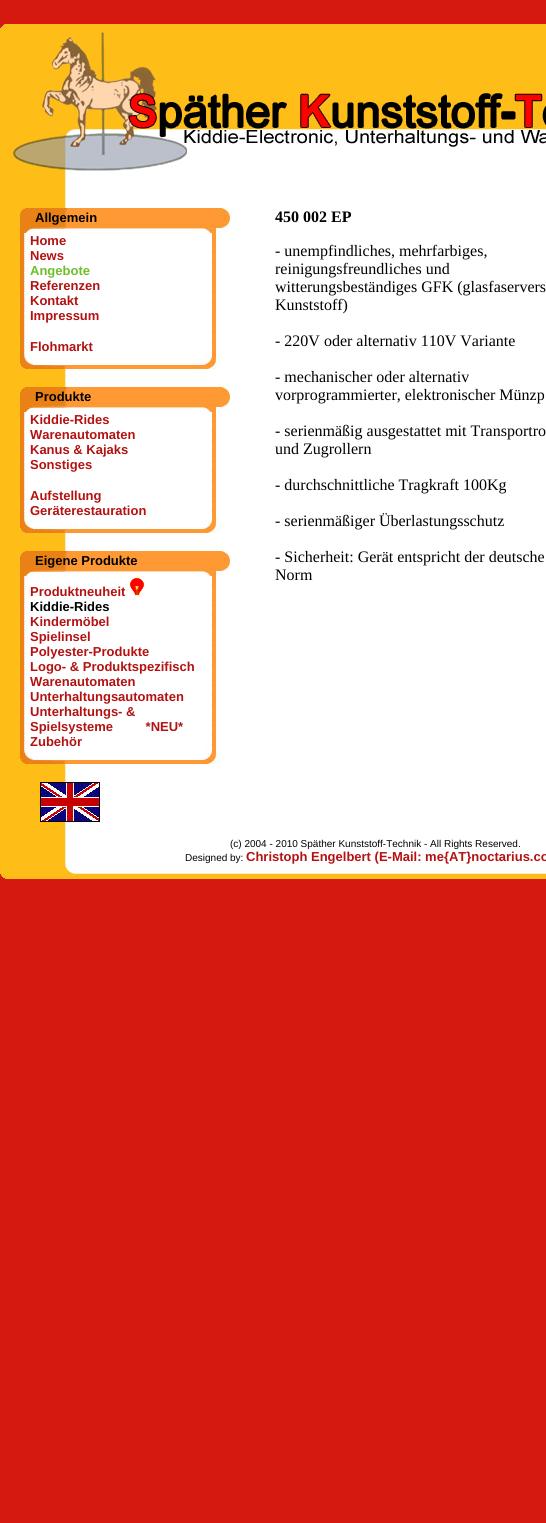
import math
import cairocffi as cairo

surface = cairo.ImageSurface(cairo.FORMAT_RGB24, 546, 1523)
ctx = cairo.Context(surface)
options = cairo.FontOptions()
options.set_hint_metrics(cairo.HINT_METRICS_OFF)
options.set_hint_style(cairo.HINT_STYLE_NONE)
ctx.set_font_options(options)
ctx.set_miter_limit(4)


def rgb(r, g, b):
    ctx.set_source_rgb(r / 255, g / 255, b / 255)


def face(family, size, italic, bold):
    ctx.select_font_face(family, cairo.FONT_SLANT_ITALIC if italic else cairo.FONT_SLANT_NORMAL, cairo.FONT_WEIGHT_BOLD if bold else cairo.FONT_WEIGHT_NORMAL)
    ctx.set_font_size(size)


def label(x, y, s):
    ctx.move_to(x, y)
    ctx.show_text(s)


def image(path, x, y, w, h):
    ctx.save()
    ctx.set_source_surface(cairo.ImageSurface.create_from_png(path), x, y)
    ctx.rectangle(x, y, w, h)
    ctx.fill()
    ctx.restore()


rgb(213, 25, 16)
ctx.paint()
image('image0.png', 0, 24, 546, 100)
image('image1.png', 0, 124, 546, 50)
image('image2.png', 0, 174, 546, 690)
image('image3.png', 20, 208, 210, 25)
face('Liberation Sans', 13, 0, 1)
rgb(0, 0, 0)
label(35, 222, 'Allgemein')
image('image4.png', 20, 233, 200, 121)
rgb(180, 18, 18)
label(30, 245, 'Home')
label(30, 260, 'News')
rgb(111, 189, 42)
label(30, 275, 'Angebote')
rgb(180, 18, 18)
label(30, 290, 'Referenzen')
label(30, 305, 'Kontakt')
label(30, 320, 'Impressum')
label(30, 351, 'Flohmarkt')
image('image5.png', 20, 354, 200, 15)
image('image3.png', 20, 387, 210, 25)
rgb(0, 0, 0)
label(35, 401, 'Produkte')
image('image6.png', 20, 412, 200, 106)
rgb(180, 18, 18)
label(30, 424, 'Kiddie-Rides')
label(30, 439, 'Warenautomaten')
label(30, 454, 'Kanus & Kajaks')
label(30, 469, 'Sonstiges')
label(30, 500, 'Aufstellung')
label(30, 515, 'Geräterestauration')
image('image5.png', 20, 518, 200, 15)
image('image3.png', 20, 551, 210, 25)
rgb(0, 0, 0)
label(35, 565, 'Eigene Produkte')
image('image7.png', 20, 576, 200, 173)
rgb(180, 18, 18)
label(30, 596, 'Produktneuheit')
image('image8.png', 129, 577, 16, 19)
rgb(0, 0, 0)
label(30, 611, 'Kiddie-Rides')
rgb(180, 18, 18)
label(30, 626, 'Kindermöbel')
label(30, 641, 'Spielinsel')
label(30, 656, 'Polyester-Produkte')
label(30, 671, 'Logo- & Produktspezifisch')
label(30, 686, 'Warenautomaten')
label(30, 701, 'Unterhaltungsautomaten')
label(30, 716, 'Unterhaltungs- &')
label(30, 731, 'Spielsysteme         *NEU*')
label(30, 746, 'Zubehör')
image('image5.png', 20, 749, 200, 15)
image('image9.png', 40, 782, 60, 40)
face('Liberation Serif', 16, 0, 1)
rgb(0, 0, 0)
label(275, 222, '450 002 EP')
face('Liberation Serif', 16, 0, 0)
label(275, 256, '- unempfindliches, mehrfarbiges,')
label(275, 274, 'reinigungsfreundliches und')
label(275, 292, 'witterungsbeständiges GFK (glasfaservers')
label(275, 310, 'Kunststoff)')
label(275, 346, '- 220V oder alternativ 110V Variante')
label(275, 382, '- mechanischer oder alternativ')
label(275, 400, 'vorprogrammierter, elektronischer Münzp')
label(275, 436, '- serienmäßig ausgestattet mit Transportro')
label(275, 454, 'und Zugrollern')
label(275, 490, '- durchschnittliche Tragkraft 100Kg')
label(275, 526, '- serienmäßiger Überlastungsschutz')
label(275, 562, '- Sicherheit: Gerät entspricht der deutsche')
label(275, 580, 'Norm')
face('Liberation Sans', 10, 0, 0)
label(230, 847, '(c) 2004 - 2010 Späther Kunststoff-Technik - All Rights Reserved.')
label(185, 861, 'Designed by:')
face('Liberation Sans', 13, 0, 1)
rgb(180, 18, 18)
label(246, 861, 'Christoph Engelbert (E-Mail: me{AT}noctarius.co')
image('image10.png', 0, 864, 546, 15)
surface.write_to_png('render.png')
